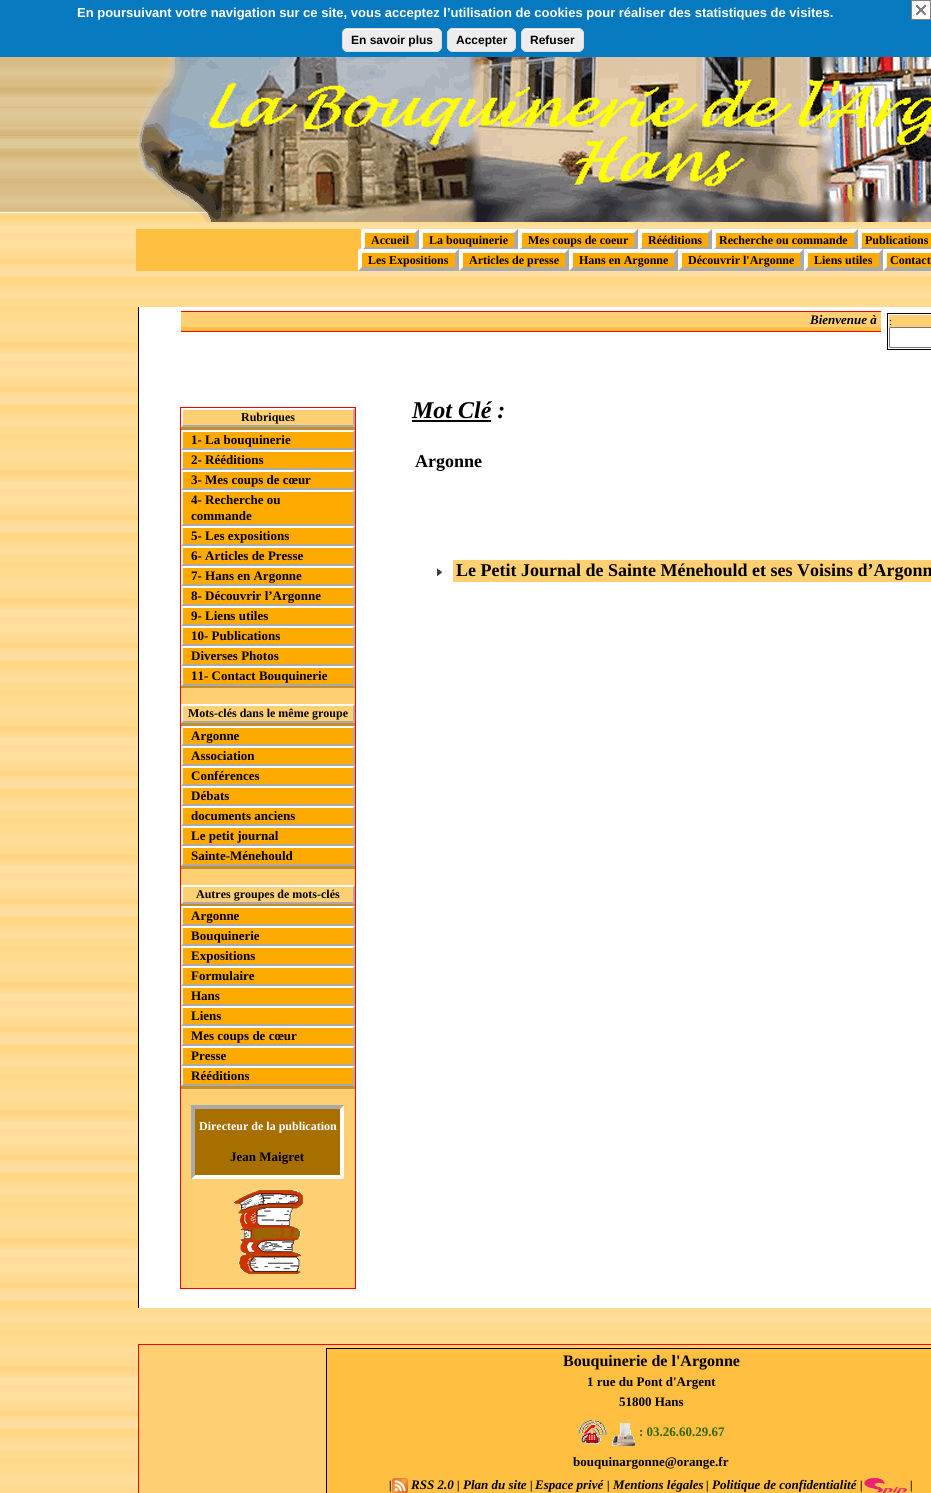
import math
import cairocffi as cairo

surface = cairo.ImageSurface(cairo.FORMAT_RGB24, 931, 1493)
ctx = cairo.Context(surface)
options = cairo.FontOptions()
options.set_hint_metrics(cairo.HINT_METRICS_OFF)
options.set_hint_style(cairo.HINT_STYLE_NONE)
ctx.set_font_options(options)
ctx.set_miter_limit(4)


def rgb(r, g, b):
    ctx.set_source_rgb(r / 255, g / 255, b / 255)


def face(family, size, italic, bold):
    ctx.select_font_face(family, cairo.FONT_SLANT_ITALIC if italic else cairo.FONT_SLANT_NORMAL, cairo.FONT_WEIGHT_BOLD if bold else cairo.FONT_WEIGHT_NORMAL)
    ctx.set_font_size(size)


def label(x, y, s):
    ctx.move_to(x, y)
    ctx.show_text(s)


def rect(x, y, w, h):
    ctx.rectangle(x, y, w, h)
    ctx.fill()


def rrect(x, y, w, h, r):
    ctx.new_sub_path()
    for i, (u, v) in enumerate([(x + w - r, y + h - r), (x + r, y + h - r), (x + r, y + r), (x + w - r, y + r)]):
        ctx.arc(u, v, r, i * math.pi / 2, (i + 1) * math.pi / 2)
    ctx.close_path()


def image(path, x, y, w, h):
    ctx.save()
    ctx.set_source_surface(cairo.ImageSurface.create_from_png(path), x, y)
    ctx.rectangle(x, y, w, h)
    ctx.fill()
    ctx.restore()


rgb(255, 255, 255)
ctx.paint()
image('image0.png', 0, 57, 931, 1436)
rgb(7, 121, 191)
rect(0, 0, 931, 57)
face('Liberation Sans', 13, 0, 1)
rgb(255, 255, 255)
label(77, 17, 'En poursuivant votre navigation sur ce site, vous acceptez l’utilisation de cookies pour réaliser des statistiques de visites.')
image('image1.png', 911, 0, 20, 20)
rgb(237, 237, 237)
rrect(342, 28, 100, 24, 6)
ctx.fill()
rgb(255, 255, 255)
ctx.new_path()
ctx.move_to(348, 30)
ctx.line_to(436, 30)
ctx.curve_to(439, 30, 441, 32, 441, 35)
ctx.curve_to(441, 25, 427, 29, 421, 29)
ctx.line_to(363, 29)
ctx.curve_to(357, 29, 343, 25, 343, 35)
ctx.curve_to(343, 32, 345, 30, 348, 30)
ctx.close_path()
ctx.fill()
rrect(342.5, 28.5, 99, 23, 5.5)
rgb(220, 220, 220)
ctx.set_line_width(1)
ctx.stroke()
face('Liberation Sans', 12, 0, 1)
rgb(0, 0, 0)
label(351, 44, 'En savoir plus')
rgb(237, 237, 237)
rrect(447, 28, 69, 24, 6)
ctx.fill()
rgb(255, 255, 255)
ctx.new_path()
ctx.move_to(453, 30)
ctx.line_to(510, 30)
ctx.curve_to(513, 30, 515, 32, 515, 35)
ctx.curve_to(515, 27, 506, 29, 500, 29)
ctx.line_to(462, 29)
ctx.curve_to(457, 29, 448, 27, 448, 35)
ctx.curve_to(448, 32, 450, 30, 453, 30)
ctx.close_path()
ctx.fill()
rrect(447.5, 28.5, 68, 23, 5.5)
rgb(220, 220, 220)
ctx.stroke()
rgb(0, 0, 0)
label(456, 44, 'Accepter')
rgb(237, 237, 237)
rrect(521, 28, 63, 24, 6)
ctx.fill()
rgb(255, 255, 255)
ctx.new_path()
ctx.move_to(527, 30)
ctx.line_to(578, 30)
ctx.curve_to(581, 30, 583, 32, 583, 35)
ctx.curve_to(583, 27, 575, 29, 570, 29)
ctx.line_to(536, 29)
ctx.curve_to(530, 29, 522, 27, 522, 35)
ctx.curve_to(522, 32, 524, 30, 527, 30)
ctx.close_path()
ctx.fill()
rrect(521.5, 28.5, 62, 23, 5.5)
rgb(220, 220, 220)
ctx.stroke()
rgb(0, 0, 0)
label(530, 44, 'Refuser')
image('image2.png', 136, 57, 795, 165)
rgb(255, 191, 64)
rect(136, 229, 225, 42)
rgb(255, 170, 0)
rect(361, 229, 570, 20)
face('Liberation Serif', 12, 0, 1)
rgb(0, 0, 0)
label(371, 244, 'Accueil')
rgb(255, 255, 255)
ctx.new_path()
ctx.move_to(361, 229)
ctx.line_to(419, 229)
ctx.line_to(415, 233)
ctx.line_to(365, 233)
ctx.close_path()
ctx.fill()
rgb(170, 170, 170)
ctx.new_path()
ctx.move_to(419, 229)
ctx.line_to(419, 251)
ctx.line_to(415, 247)
ctx.line_to(415, 233)
ctx.close_path()
ctx.fill()
ctx.new_path()
ctx.move_to(419, 251)
ctx.line_to(361, 251)
ctx.line_to(365, 247)
ctx.line_to(415, 247)
ctx.close_path()
ctx.fill()
rgb(255, 255, 255)
ctx.new_path()
ctx.move_to(361, 251)
ctx.line_to(361, 229)
ctx.line_to(365, 233)
ctx.line_to(365, 247)
ctx.close_path()
ctx.fill()
rgb(0, 0, 0)
label(429, 244, 'La bouquinerie')
rgb(255, 255, 255)
ctx.new_path()
ctx.move_to(419, 229)
ctx.line_to(518, 229)
ctx.line_to(514, 233)
ctx.line_to(423, 233)
ctx.close_path()
ctx.fill()
rgb(170, 170, 170)
ctx.new_path()
ctx.move_to(518, 229)
ctx.line_to(518, 251)
ctx.line_to(514, 247)
ctx.line_to(514, 233)
ctx.close_path()
ctx.fill()
ctx.new_path()
ctx.move_to(518, 251)
ctx.line_to(419, 251)
ctx.line_to(423, 247)
ctx.line_to(514, 247)
ctx.close_path()
ctx.fill()
rgb(255, 255, 255)
ctx.new_path()
ctx.move_to(419, 251)
ctx.line_to(419, 229)
ctx.line_to(423, 233)
ctx.line_to(423, 247)
ctx.close_path()
ctx.fill()
rgb(0, 0, 0)
label(528, 244, 'Mes coups de coeur')
rgb(255, 255, 255)
ctx.new_path()
ctx.move_to(518, 229)
ctx.line_to(638, 229)
ctx.line_to(634, 233)
ctx.line_to(522, 233)
ctx.close_path()
ctx.fill()
rgb(170, 170, 170)
ctx.new_path()
ctx.move_to(638, 229)
ctx.line_to(638, 251)
ctx.line_to(634, 247)
ctx.line_to(634, 233)
ctx.close_path()
ctx.fill()
ctx.new_path()
ctx.move_to(638, 251)
ctx.line_to(518, 251)
ctx.line_to(522, 247)
ctx.line_to(634, 247)
ctx.close_path()
ctx.fill()
rgb(255, 255, 255)
ctx.new_path()
ctx.move_to(518, 251)
ctx.line_to(518, 229)
ctx.line_to(522, 233)
ctx.line_to(522, 247)
ctx.close_path()
ctx.fill()
rgb(0, 0, 0)
label(648, 244, 'Rééditions')
rgb(255, 255, 255)
ctx.new_path()
ctx.move_to(638, 229)
ctx.line_to(712, 229)
ctx.line_to(708, 233)
ctx.line_to(642, 233)
ctx.close_path()
ctx.fill()
rgb(170, 170, 170)
ctx.new_path()
ctx.move_to(712, 229)
ctx.line_to(712, 251)
ctx.line_to(708, 247)
ctx.line_to(708, 233)
ctx.close_path()
ctx.fill()
ctx.new_path()
ctx.move_to(712, 251)
ctx.line_to(638, 251)
ctx.line_to(642, 247)
ctx.line_to(708, 247)
ctx.close_path()
ctx.fill()
rgb(255, 255, 255)
ctx.new_path()
ctx.move_to(638, 251)
ctx.line_to(638, 229)
ctx.line_to(642, 233)
ctx.line_to(642, 247)
ctx.close_path()
ctx.fill()
rgb(0, 0, 0)
label(719, 244, 'Recherche ou commande')
rgb(255, 255, 255)
ctx.new_path()
ctx.move_to(712, 229)
ctx.line_to(858, 229)
ctx.line_to(854, 233)
ctx.line_to(716, 233)
ctx.close_path()
ctx.fill()
rgb(170, 170, 170)
ctx.new_path()
ctx.move_to(858, 229)
ctx.line_to(858, 251)
ctx.line_to(854, 247)
ctx.line_to(854, 233)
ctx.close_path()
ctx.fill()
ctx.new_path()
ctx.move_to(858, 251)
ctx.line_to(712, 251)
ctx.line_to(716, 247)
ctx.line_to(854, 247)
ctx.close_path()
ctx.fill()
rgb(255, 255, 255)
ctx.new_path()
ctx.move_to(712, 251)
ctx.line_to(712, 229)
ctx.line_to(716, 233)
ctx.line_to(716, 247)
ctx.close_path()
ctx.fill()
rgb(0, 0, 0)
label(865, 244, 'Publications')
rgb(255, 255, 255)
ctx.new_path()
ctx.move_to(858, 229)
ctx.line_to(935, 229)
ctx.line_to(931, 233)
ctx.line_to(862, 233)
ctx.close_path()
ctx.fill()
rgb(170, 170, 170)
ctx.new_path()
ctx.move_to(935, 251)
ctx.line_to(858, 251)
ctx.line_to(862, 247)
ctx.line_to(931, 247)
ctx.close_path()
ctx.fill()
rgb(255, 255, 255)
ctx.new_path()
ctx.move_to(858, 251)
ctx.line_to(858, 229)
ctx.line_to(862, 233)
ctx.line_to(862, 247)
ctx.close_path()
ctx.fill()
rgb(255, 170, 0)
rect(358, 249, 573, 22)
rgb(0, 0, 0)
label(368, 264, 'Les Expositions')
rgb(255, 255, 255)
ctx.new_path()
ctx.move_to(358, 249)
ctx.line_to(459, 249)
ctx.line_to(455, 253)
ctx.line_to(362, 253)
ctx.close_path()
ctx.fill()
rgb(170, 170, 170)
ctx.new_path()
ctx.move_to(459, 249)
ctx.line_to(459, 271)
ctx.line_to(455, 267)
ctx.line_to(455, 253)
ctx.close_path()
ctx.fill()
ctx.new_path()
ctx.move_to(459, 271)
ctx.line_to(358, 271)
ctx.line_to(362, 267)
ctx.line_to(455, 267)
ctx.close_path()
ctx.fill()
rgb(255, 255, 255)
ctx.new_path()
ctx.move_to(358, 271)
ctx.line_to(358, 249)
ctx.line_to(362, 253)
ctx.line_to(362, 267)
ctx.close_path()
ctx.fill()
rgb(0, 0, 0)
label(469, 264, 'Articles de presse')
rgb(255, 255, 255)
ctx.new_path()
ctx.move_to(459, 249)
ctx.line_to(569, 249)
ctx.line_to(565, 253)
ctx.line_to(463, 253)
ctx.close_path()
ctx.fill()
rgb(170, 170, 170)
ctx.new_path()
ctx.move_to(569, 249)
ctx.line_to(569, 271)
ctx.line_to(565, 267)
ctx.line_to(565, 253)
ctx.close_path()
ctx.fill()
ctx.new_path()
ctx.move_to(569, 271)
ctx.line_to(459, 271)
ctx.line_to(463, 267)
ctx.line_to(565, 267)
ctx.close_path()
ctx.fill()
rgb(255, 255, 255)
ctx.new_path()
ctx.move_to(459, 271)
ctx.line_to(459, 249)
ctx.line_to(463, 253)
ctx.line_to(463, 267)
ctx.close_path()
ctx.fill()
rgb(0, 0, 0)
label(579, 264, 'Hans en Argonne')
rgb(255, 255, 255)
ctx.new_path()
ctx.move_to(569, 249)
ctx.line_to(678, 249)
ctx.line_to(674, 253)
ctx.line_to(573, 253)
ctx.close_path()
ctx.fill()
rgb(170, 170, 170)
ctx.new_path()
ctx.move_to(678, 249)
ctx.line_to(678, 271)
ctx.line_to(674, 267)
ctx.line_to(674, 253)
ctx.close_path()
ctx.fill()
ctx.new_path()
ctx.move_to(678, 271)
ctx.line_to(569, 271)
ctx.line_to(573, 267)
ctx.line_to(674, 267)
ctx.close_path()
ctx.fill()
rgb(255, 255, 255)
ctx.new_path()
ctx.move_to(569, 271)
ctx.line_to(569, 249)
ctx.line_to(573, 253)
ctx.line_to(573, 267)
ctx.close_path()
ctx.fill()
rgb(0, 0, 0)
label(688, 264, 'Découvrir l\'Argonne')
rgb(255, 255, 255)
ctx.new_path()
ctx.move_to(678, 249)
ctx.line_to(804, 249)
ctx.line_to(800, 253)
ctx.line_to(682, 253)
ctx.close_path()
ctx.fill()
rgb(170, 170, 170)
ctx.new_path()
ctx.move_to(804, 249)
ctx.line_to(804, 271)
ctx.line_to(800, 267)
ctx.line_to(800, 253)
ctx.close_path()
ctx.fill()
ctx.new_path()
ctx.move_to(804, 271)
ctx.line_to(678, 271)
ctx.line_to(682, 267)
ctx.line_to(800, 267)
ctx.close_path()
ctx.fill()
rgb(255, 255, 255)
ctx.new_path()
ctx.move_to(678, 271)
ctx.line_to(678, 249)
ctx.line_to(682, 253)
ctx.line_to(682, 267)
ctx.close_path()
ctx.fill()
rgb(0, 0, 0)
label(814, 264, 'Liens utiles')
rgb(255, 255, 255)
ctx.new_path()
ctx.move_to(804, 249)
ctx.line_to(883, 249)
ctx.line_to(879, 253)
ctx.line_to(808, 253)
ctx.close_path()
ctx.fill()
rgb(170, 170, 170)
ctx.new_path()
ctx.move_to(883, 249)
ctx.line_to(883, 271)
ctx.line_to(879, 267)
ctx.line_to(879, 253)
ctx.close_path()
ctx.fill()
ctx.new_path()
ctx.move_to(883, 271)
ctx.line_to(804, 271)
ctx.line_to(808, 267)
ctx.line_to(879, 267)
ctx.close_path()
ctx.fill()
rgb(255, 255, 255)
ctx.new_path()
ctx.move_to(804, 271)
ctx.line_to(804, 249)
ctx.line_to(808, 253)
ctx.line_to(808, 267)
ctx.close_path()
ctx.fill()
rgb(0, 0, 0)
label(890, 264, 'Contact')
rgb(255, 255, 255)
ctx.new_path()
ctx.move_to(883, 249)
ctx.line_to(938, 249)
ctx.line_to(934, 253)
ctx.line_to(887, 253)
ctx.close_path()
ctx.fill()
rgb(170, 170, 170)
ctx.new_path()
ctx.move_to(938, 271)
ctx.line_to(883, 271)
ctx.line_to(887, 267)
ctx.line_to(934, 267)
ctx.close_path()
ctx.fill()
rgb(255, 255, 255)
ctx.new_path()
ctx.move_to(883, 271)
ctx.line_to(883, 249)
ctx.line_to(887, 253)
ctx.line_to(887, 267)
ctx.close_path()
ctx.fill()
rect(139, 307, 792, 1001)
rgb(0, 0, 0)
rect(138, 307, 1, 1001)
rgb(255, 191, 64)
rect(181, 327, 700, 4)
rgb(255, 0, 0)
rect(181, 311, 700, 1)
rect(181, 331, 700, 1)
rgb(255, 208, 115)
rect(181, 312, 700, 15)
face('Liberation Serif', 13, 1, 1)
rgb(0, 0, 0)
label(810, 324, 'Bienvenue à')
ctx.rectangle(887.5, 313.5, 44, 36)
ctx.stroke()
rgb(255, 208, 115)
rect(889, 315, 42, 33)
face('Liberation Serif', 11, 0, 0)
rgb(0, 0, 0)
label(889, 325, ':')
rgb(255, 255, 255)
rrect(889.5, 327.5, 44, 20, 1.5)
ctx.fill_preserve()
rgb(118, 118, 118)
ctx.stroke()
rgb(255, 208, 115)
rect(181, 688, 174, 600)
ctx.rectangle(180.5, 407.5, 175, 881)
rgb(255, 0, 0)
ctx.stroke()
rgb(191, 143, 48)
rect(181, 427, 174, 261)
rgb(255, 208, 115)
rect(181, 408, 174, 19)
rgb(255, 255, 255)
ctx.new_path()
ctx.move_to(181, 408)
ctx.line_to(355, 408)
ctx.line_to(353, 410)
ctx.line_to(183, 410)
ctx.close_path()
ctx.fill()
rgb(170, 170, 170)
ctx.new_path()
ctx.move_to(355, 408)
ctx.line_to(355, 427)
ctx.line_to(353, 425)
ctx.line_to(353, 410)
ctx.close_path()
ctx.fill()
ctx.new_path()
ctx.move_to(355, 427)
ctx.line_to(181, 427)
ctx.line_to(183, 425)
ctx.line_to(353, 425)
ctx.close_path()
ctx.fill()
rgb(255, 255, 255)
ctx.new_path()
ctx.move_to(181, 427)
ctx.line_to(181, 408)
ctx.line_to(183, 410)
ctx.line_to(183, 425)
ctx.close_path()
ctx.fill()
face('Liberation Serif', 12, 0, 1)
rgb(0, 0, 0)
label(241, 421, 'Rubriques')
rgb(255, 170, 0)
rect(181, 430, 174, 256)
rgb(255, 255, 255)
ctx.new_path()
ctx.move_to(181, 430)
ctx.line_to(355, 430)
ctx.line_to(353, 432)
ctx.line_to(183, 432)
ctx.close_path()
ctx.fill()
rgb(170, 170, 170)
ctx.new_path()
ctx.move_to(355, 430)
ctx.line_to(355, 450)
ctx.line_to(353, 448)
ctx.line_to(353, 432)
ctx.close_path()
ctx.fill()
ctx.new_path()
ctx.move_to(355, 450)
ctx.line_to(181, 450)
ctx.line_to(183, 448)
ctx.line_to(353, 448)
ctx.close_path()
ctx.fill()
rgb(255, 255, 255)
ctx.new_path()
ctx.move_to(181, 450)
ctx.line_to(181, 430)
ctx.line_to(183, 432)
ctx.line_to(183, 448)
ctx.close_path()
ctx.fill()
face('Liberation Serif', 13, 0, 1)
rgb(0, 0, 0)
label(191, 444, '1- La bouquinerie')
rgb(255, 255, 255)
ctx.new_path()
ctx.move_to(181, 450)
ctx.line_to(355, 450)
ctx.line_to(353, 452)
ctx.line_to(183, 452)
ctx.close_path()
ctx.fill()
rgb(170, 170, 170)
ctx.new_path()
ctx.move_to(355, 450)
ctx.line_to(355, 470)
ctx.line_to(353, 468)
ctx.line_to(353, 452)
ctx.close_path()
ctx.fill()
ctx.new_path()
ctx.move_to(355, 470)
ctx.line_to(181, 470)
ctx.line_to(183, 468)
ctx.line_to(353, 468)
ctx.close_path()
ctx.fill()
rgb(255, 255, 255)
ctx.new_path()
ctx.move_to(181, 470)
ctx.line_to(181, 450)
ctx.line_to(183, 452)
ctx.line_to(183, 468)
ctx.close_path()
ctx.fill()
rgb(0, 0, 0)
label(191, 464, '2- Rééditions')
rgb(255, 255, 255)
ctx.new_path()
ctx.move_to(181, 470)
ctx.line_to(355, 470)
ctx.line_to(353, 472)
ctx.line_to(183, 472)
ctx.close_path()
ctx.fill()
rgb(170, 170, 170)
ctx.new_path()
ctx.move_to(355, 470)
ctx.line_to(355, 490)
ctx.line_to(353, 488)
ctx.line_to(353, 472)
ctx.close_path()
ctx.fill()
ctx.new_path()
ctx.move_to(355, 490)
ctx.line_to(181, 490)
ctx.line_to(183, 488)
ctx.line_to(353, 488)
ctx.close_path()
ctx.fill()
rgb(255, 255, 255)
ctx.new_path()
ctx.move_to(181, 490)
ctx.line_to(181, 470)
ctx.line_to(183, 472)
ctx.line_to(183, 488)
ctx.close_path()
ctx.fill()
rgb(0, 0, 0)
label(191, 484, '3- Mes coups de cœur')
rgb(255, 255, 255)
ctx.new_path()
ctx.move_to(181, 490)
ctx.line_to(355, 490)
ctx.line_to(353, 492)
ctx.line_to(183, 492)
ctx.close_path()
ctx.fill()
rgb(170, 170, 170)
ctx.new_path()
ctx.move_to(355, 490)
ctx.line_to(355, 526)
ctx.line_to(353, 524)
ctx.line_to(353, 492)
ctx.close_path()
ctx.fill()
ctx.new_path()
ctx.move_to(355, 526)
ctx.line_to(181, 526)
ctx.line_to(183, 524)
ctx.line_to(353, 524)
ctx.close_path()
ctx.fill()
rgb(255, 255, 255)
ctx.new_path()
ctx.move_to(181, 526)
ctx.line_to(181, 490)
ctx.line_to(183, 492)
ctx.line_to(183, 524)
ctx.close_path()
ctx.fill()
rgb(0, 0, 0)
label(191, 504, '4- Recherche ou')
label(191, 520, 'commande')
rgb(255, 255, 255)
ctx.new_path()
ctx.move_to(181, 526)
ctx.line_to(355, 526)
ctx.line_to(353, 528)
ctx.line_to(183, 528)
ctx.close_path()
ctx.fill()
rgb(170, 170, 170)
ctx.new_path()
ctx.move_to(355, 526)
ctx.line_to(355, 546)
ctx.line_to(353, 544)
ctx.line_to(353, 528)
ctx.close_path()
ctx.fill()
ctx.new_path()
ctx.move_to(355, 546)
ctx.line_to(181, 546)
ctx.line_to(183, 544)
ctx.line_to(353, 544)
ctx.close_path()
ctx.fill()
rgb(255, 255, 255)
ctx.new_path()
ctx.move_to(181, 546)
ctx.line_to(181, 526)
ctx.line_to(183, 528)
ctx.line_to(183, 544)
ctx.close_path()
ctx.fill()
rgb(0, 0, 0)
label(191, 540, '5- Les expositions')
rgb(255, 255, 255)
ctx.new_path()
ctx.move_to(181, 546)
ctx.line_to(355, 546)
ctx.line_to(353, 548)
ctx.line_to(183, 548)
ctx.close_path()
ctx.fill()
rgb(170, 170, 170)
ctx.new_path()
ctx.move_to(355, 546)
ctx.line_to(355, 566)
ctx.line_to(353, 564)
ctx.line_to(353, 548)
ctx.close_path()
ctx.fill()
ctx.new_path()
ctx.move_to(355, 566)
ctx.line_to(181, 566)
ctx.line_to(183, 564)
ctx.line_to(353, 564)
ctx.close_path()
ctx.fill()
rgb(255, 255, 255)
ctx.new_path()
ctx.move_to(181, 566)
ctx.line_to(181, 546)
ctx.line_to(183, 548)
ctx.line_to(183, 564)
ctx.close_path()
ctx.fill()
rgb(0, 0, 0)
label(191, 560, '6- Articles de Presse')
rgb(255, 255, 255)
ctx.new_path()
ctx.move_to(181, 566)
ctx.line_to(355, 566)
ctx.line_to(353, 568)
ctx.line_to(183, 568)
ctx.close_path()
ctx.fill()
rgb(170, 170, 170)
ctx.new_path()
ctx.move_to(355, 566)
ctx.line_to(355, 586)
ctx.line_to(353, 584)
ctx.line_to(353, 568)
ctx.close_path()
ctx.fill()
ctx.new_path()
ctx.move_to(355, 586)
ctx.line_to(181, 586)
ctx.line_to(183, 584)
ctx.line_to(353, 584)
ctx.close_path()
ctx.fill()
rgb(255, 255, 255)
ctx.new_path()
ctx.move_to(181, 586)
ctx.line_to(181, 566)
ctx.line_to(183, 568)
ctx.line_to(183, 584)
ctx.close_path()
ctx.fill()
rgb(0, 0, 0)
label(191, 580, '7- Hans en Argonne')
rgb(255, 255, 255)
ctx.new_path()
ctx.move_to(181, 586)
ctx.line_to(355, 586)
ctx.line_to(353, 588)
ctx.line_to(183, 588)
ctx.close_path()
ctx.fill()
rgb(170, 170, 170)
ctx.new_path()
ctx.move_to(355, 586)
ctx.line_to(355, 606)
ctx.line_to(353, 604)
ctx.line_to(353, 588)
ctx.close_path()
ctx.fill()
ctx.new_path()
ctx.move_to(355, 606)
ctx.line_to(181, 606)
ctx.line_to(183, 604)
ctx.line_to(353, 604)
ctx.close_path()
ctx.fill()
rgb(255, 255, 255)
ctx.new_path()
ctx.move_to(181, 606)
ctx.line_to(181, 586)
ctx.line_to(183, 588)
ctx.line_to(183, 604)
ctx.close_path()
ctx.fill()
rgb(0, 0, 0)
label(191, 600, '8- Découvrir l’Argonne')
rgb(255, 255, 255)
ctx.new_path()
ctx.move_to(181, 606)
ctx.line_to(355, 606)
ctx.line_to(353, 608)
ctx.line_to(183, 608)
ctx.close_path()
ctx.fill()
rgb(170, 170, 170)
ctx.new_path()
ctx.move_to(355, 606)
ctx.line_to(355, 626)
ctx.line_to(353, 624)
ctx.line_to(353, 608)
ctx.close_path()
ctx.fill()
ctx.new_path()
ctx.move_to(355, 626)
ctx.line_to(181, 626)
ctx.line_to(183, 624)
ctx.line_to(353, 624)
ctx.close_path()
ctx.fill()
rgb(255, 255, 255)
ctx.new_path()
ctx.move_to(181, 626)
ctx.line_to(181, 606)
ctx.line_to(183, 608)
ctx.line_to(183, 624)
ctx.close_path()
ctx.fill()
rgb(0, 0, 0)
label(191, 620, '9- Liens utiles')
rgb(255, 255, 255)
ctx.new_path()
ctx.move_to(181, 626)
ctx.line_to(355, 626)
ctx.line_to(353, 628)
ctx.line_to(183, 628)
ctx.close_path()
ctx.fill()
rgb(170, 170, 170)
ctx.new_path()
ctx.move_to(355, 626)
ctx.line_to(355, 646)
ctx.line_to(353, 644)
ctx.line_to(353, 628)
ctx.close_path()
ctx.fill()
ctx.new_path()
ctx.move_to(355, 646)
ctx.line_to(181, 646)
ctx.line_to(183, 644)
ctx.line_to(353, 644)
ctx.close_path()
ctx.fill()
rgb(255, 255, 255)
ctx.new_path()
ctx.move_to(181, 646)
ctx.line_to(181, 626)
ctx.line_to(183, 628)
ctx.line_to(183, 644)
ctx.close_path()
ctx.fill()
rgb(0, 0, 0)
label(191, 640, '10- Publications')
rgb(255, 255, 255)
ctx.new_path()
ctx.move_to(181, 646)
ctx.line_to(355, 646)
ctx.line_to(353, 648)
ctx.line_to(183, 648)
ctx.close_path()
ctx.fill()
rgb(170, 170, 170)
ctx.new_path()
ctx.move_to(355, 646)
ctx.line_to(355, 666)
ctx.line_to(353, 664)
ctx.line_to(353, 648)
ctx.close_path()
ctx.fill()
ctx.new_path()
ctx.move_to(355, 666)
ctx.line_to(181, 666)
ctx.line_to(183, 664)
ctx.line_to(353, 664)
ctx.close_path()
ctx.fill()
rgb(255, 255, 255)
ctx.new_path()
ctx.move_to(181, 666)
ctx.line_to(181, 646)
ctx.line_to(183, 648)
ctx.line_to(183, 664)
ctx.close_path()
ctx.fill()
rgb(0, 0, 0)
label(191, 660, 'Diverses Photos')
rgb(255, 255, 255)
ctx.new_path()
ctx.move_to(181, 666)
ctx.line_to(355, 666)
ctx.line_to(353, 668)
ctx.line_to(183, 668)
ctx.close_path()
ctx.fill()
rgb(170, 170, 170)
ctx.new_path()
ctx.move_to(355, 666)
ctx.line_to(355, 686)
ctx.line_to(353, 684)
ctx.line_to(353, 668)
ctx.close_path()
ctx.fill()
ctx.new_path()
ctx.move_to(355, 686)
ctx.line_to(181, 686)
ctx.line_to(183, 684)
ctx.line_to(353, 684)
ctx.close_path()
ctx.fill()
rgb(255, 255, 255)
ctx.new_path()
ctx.move_to(181, 686)
ctx.line_to(181, 666)
ctx.line_to(183, 668)
ctx.line_to(183, 684)
ctx.close_path()
ctx.fill()
rgb(0, 0, 0)
label(191, 680, '11- Contact Bouquinerie')
rgb(191, 143, 48)
rect(181, 723, 174, 146)
rgb(255, 255, 255)
ctx.new_path()
ctx.move_to(181, 704)
ctx.line_to(355, 704)
ctx.line_to(353, 706)
ctx.line_to(183, 706)
ctx.close_path()
ctx.fill()
rgb(170, 170, 170)
ctx.new_path()
ctx.move_to(355, 704)
ctx.line_to(355, 723)
ctx.line_to(353, 721)
ctx.line_to(353, 706)
ctx.close_path()
ctx.fill()
ctx.new_path()
ctx.move_to(355, 723)
ctx.line_to(181, 723)
ctx.line_to(183, 721)
ctx.line_to(353, 721)
ctx.close_path()
ctx.fill()
rgb(255, 255, 255)
ctx.new_path()
ctx.move_to(181, 723)
ctx.line_to(181, 704)
ctx.line_to(183, 706)
ctx.line_to(183, 721)
ctx.close_path()
ctx.fill()
face('Liberation Serif', 12, 0, 1)
rgb(0, 0, 0)
label(188, 717, 'Mots-clés dans le même groupe')
rgb(255, 170, 0)
rect(181, 726, 174, 140)
rgb(255, 255, 255)
ctx.new_path()
ctx.move_to(181, 726)
ctx.line_to(355, 726)
ctx.line_to(353, 728)
ctx.line_to(183, 728)
ctx.close_path()
ctx.fill()
rgb(170, 170, 170)
ctx.new_path()
ctx.move_to(355, 726)
ctx.line_to(355, 746)
ctx.line_to(353, 744)
ctx.line_to(353, 728)
ctx.close_path()
ctx.fill()
ctx.new_path()
ctx.move_to(355, 746)
ctx.line_to(181, 746)
ctx.line_to(183, 744)
ctx.line_to(353, 744)
ctx.close_path()
ctx.fill()
rgb(255, 255, 255)
ctx.new_path()
ctx.move_to(181, 746)
ctx.line_to(181, 726)
ctx.line_to(183, 728)
ctx.line_to(183, 744)
ctx.close_path()
ctx.fill()
face('Liberation Serif', 13, 0, 1)
rgb(0, 0, 0)
label(191, 740, 'Argonne')
rgb(255, 255, 255)
ctx.new_path()
ctx.move_to(181, 746)
ctx.line_to(355, 746)
ctx.line_to(353, 748)
ctx.line_to(183, 748)
ctx.close_path()
ctx.fill()
rgb(170, 170, 170)
ctx.new_path()
ctx.move_to(355, 746)
ctx.line_to(355, 766)
ctx.line_to(353, 764)
ctx.line_to(353, 748)
ctx.close_path()
ctx.fill()
ctx.new_path()
ctx.move_to(355, 766)
ctx.line_to(181, 766)
ctx.line_to(183, 764)
ctx.line_to(353, 764)
ctx.close_path()
ctx.fill()
rgb(255, 255, 255)
ctx.new_path()
ctx.move_to(181, 766)
ctx.line_to(181, 746)
ctx.line_to(183, 748)
ctx.line_to(183, 764)
ctx.close_path()
ctx.fill()
rgb(0, 0, 0)
label(191, 760, 'Association')
rgb(255, 255, 255)
ctx.new_path()
ctx.move_to(181, 766)
ctx.line_to(355, 766)
ctx.line_to(353, 768)
ctx.line_to(183, 768)
ctx.close_path()
ctx.fill()
rgb(170, 170, 170)
ctx.new_path()
ctx.move_to(355, 766)
ctx.line_to(355, 786)
ctx.line_to(353, 784)
ctx.line_to(353, 768)
ctx.close_path()
ctx.fill()
ctx.new_path()
ctx.move_to(355, 786)
ctx.line_to(181, 786)
ctx.line_to(183, 784)
ctx.line_to(353, 784)
ctx.close_path()
ctx.fill()
rgb(255, 255, 255)
ctx.new_path()
ctx.move_to(181, 786)
ctx.line_to(181, 766)
ctx.line_to(183, 768)
ctx.line_to(183, 784)
ctx.close_path()
ctx.fill()
rgb(0, 0, 0)
label(191, 780, 'Conférences')
rgb(255, 255, 255)
ctx.new_path()
ctx.move_to(181, 786)
ctx.line_to(355, 786)
ctx.line_to(353, 788)
ctx.line_to(183, 788)
ctx.close_path()
ctx.fill()
rgb(170, 170, 170)
ctx.new_path()
ctx.move_to(355, 786)
ctx.line_to(355, 806)
ctx.line_to(353, 804)
ctx.line_to(353, 788)
ctx.close_path()
ctx.fill()
ctx.new_path()
ctx.move_to(355, 806)
ctx.line_to(181, 806)
ctx.line_to(183, 804)
ctx.line_to(353, 804)
ctx.close_path()
ctx.fill()
rgb(255, 255, 255)
ctx.new_path()
ctx.move_to(181, 806)
ctx.line_to(181, 786)
ctx.line_to(183, 788)
ctx.line_to(183, 804)
ctx.close_path()
ctx.fill()
rgb(0, 0, 0)
label(191, 800, 'Débats')
rgb(255, 255, 255)
ctx.new_path()
ctx.move_to(181, 806)
ctx.line_to(355, 806)
ctx.line_to(353, 808)
ctx.line_to(183, 808)
ctx.close_path()
ctx.fill()
rgb(170, 170, 170)
ctx.new_path()
ctx.move_to(355, 806)
ctx.line_to(355, 826)
ctx.line_to(353, 824)
ctx.line_to(353, 808)
ctx.close_path()
ctx.fill()
ctx.new_path()
ctx.move_to(355, 826)
ctx.line_to(181, 826)
ctx.line_to(183, 824)
ctx.line_to(353, 824)
ctx.close_path()
ctx.fill()
rgb(255, 255, 255)
ctx.new_path()
ctx.move_to(181, 826)
ctx.line_to(181, 806)
ctx.line_to(183, 808)
ctx.line_to(183, 824)
ctx.close_path()
ctx.fill()
rgb(0, 0, 0)
label(191, 820, 'documents anciens')
rgb(255, 255, 255)
ctx.new_path()
ctx.move_to(181, 826)
ctx.line_to(355, 826)
ctx.line_to(353, 828)
ctx.line_to(183, 828)
ctx.close_path()
ctx.fill()
rgb(170, 170, 170)
ctx.new_path()
ctx.move_to(355, 826)
ctx.line_to(355, 846)
ctx.line_to(353, 844)
ctx.line_to(353, 828)
ctx.close_path()
ctx.fill()
ctx.new_path()
ctx.move_to(355, 846)
ctx.line_to(181, 846)
ctx.line_to(183, 844)
ctx.line_to(353, 844)
ctx.close_path()
ctx.fill()
rgb(255, 255, 255)
ctx.new_path()
ctx.move_to(181, 846)
ctx.line_to(181, 826)
ctx.line_to(183, 828)
ctx.line_to(183, 844)
ctx.close_path()
ctx.fill()
rgb(0, 0, 0)
label(191, 840, 'Le petit journal')
rgb(255, 255, 255)
ctx.new_path()
ctx.move_to(181, 846)
ctx.line_to(355, 846)
ctx.line_to(353, 848)
ctx.line_to(183, 848)
ctx.close_path()
ctx.fill()
rgb(170, 170, 170)
ctx.new_path()
ctx.move_to(355, 846)
ctx.line_to(355, 866)
ctx.line_to(353, 864)
ctx.line_to(353, 848)
ctx.close_path()
ctx.fill()
ctx.new_path()
ctx.move_to(355, 866)
ctx.line_to(181, 866)
ctx.line_to(183, 864)
ctx.line_to(353, 864)
ctx.close_path()
ctx.fill()
rgb(255, 255, 255)
ctx.new_path()
ctx.move_to(181, 866)
ctx.line_to(181, 846)
ctx.line_to(183, 848)
ctx.line_to(183, 864)
ctx.close_path()
ctx.fill()
rgb(0, 0, 0)
label(191, 860, 'Sainte-Ménehould')
rgb(191, 143, 48)
rect(181, 904, 174, 185)
rgb(255, 255, 255)
ctx.new_path()
ctx.move_to(181, 885)
ctx.line_to(355, 885)
ctx.line_to(353, 887)
ctx.line_to(183, 887)
ctx.close_path()
ctx.fill()
rgb(170, 170, 170)
ctx.new_path()
ctx.move_to(355, 885)
ctx.line_to(355, 904)
ctx.line_to(353, 902)
ctx.line_to(353, 887)
ctx.close_path()
ctx.fill()
ctx.new_path()
ctx.move_to(355, 904)
ctx.line_to(181, 904)
ctx.line_to(183, 902)
ctx.line_to(353, 902)
ctx.close_path()
ctx.fill()
rgb(255, 255, 255)
ctx.new_path()
ctx.move_to(181, 904)
ctx.line_to(181, 885)
ctx.line_to(183, 887)
ctx.line_to(183, 902)
ctx.close_path()
ctx.fill()
face('Liberation Serif', 12, 0, 1)
rgb(0, 0, 0)
label(196, 898, 'Autres groupes de mots-clés')
rgb(255, 170, 0)
rect(181, 906, 174, 180)
rgb(255, 255, 255)
ctx.new_path()
ctx.move_to(181, 906)
ctx.line_to(355, 906)
ctx.line_to(353, 908)
ctx.line_to(183, 908)
ctx.close_path()
ctx.fill()
rgb(170, 170, 170)
ctx.new_path()
ctx.move_to(355, 906)
ctx.line_to(355, 926)
ctx.line_to(353, 924)
ctx.line_to(353, 908)
ctx.close_path()
ctx.fill()
ctx.new_path()
ctx.move_to(355, 926)
ctx.line_to(181, 926)
ctx.line_to(183, 924)
ctx.line_to(353, 924)
ctx.close_path()
ctx.fill()
rgb(255, 255, 255)
ctx.new_path()
ctx.move_to(181, 926)
ctx.line_to(181, 906)
ctx.line_to(183, 908)
ctx.line_to(183, 924)
ctx.close_path()
ctx.fill()
face('Liberation Serif', 13, 0, 1)
rgb(0, 0, 0)
label(191, 920, 'Argonne')
rgb(255, 255, 255)
ctx.new_path()
ctx.move_to(181, 926)
ctx.line_to(355, 926)
ctx.line_to(353, 928)
ctx.line_to(183, 928)
ctx.close_path()
ctx.fill()
rgb(170, 170, 170)
ctx.new_path()
ctx.move_to(355, 926)
ctx.line_to(355, 946)
ctx.line_to(353, 944)
ctx.line_to(353, 928)
ctx.close_path()
ctx.fill()
ctx.new_path()
ctx.move_to(355, 946)
ctx.line_to(181, 946)
ctx.line_to(183, 944)
ctx.line_to(353, 944)
ctx.close_path()
ctx.fill()
rgb(255, 255, 255)
ctx.new_path()
ctx.move_to(181, 946)
ctx.line_to(181, 926)
ctx.line_to(183, 928)
ctx.line_to(183, 944)
ctx.close_path()
ctx.fill()
rgb(0, 0, 0)
label(191, 940, 'Bouquinerie')
rgb(255, 255, 255)
ctx.new_path()
ctx.move_to(181, 946)
ctx.line_to(355, 946)
ctx.line_to(353, 948)
ctx.line_to(183, 948)
ctx.close_path()
ctx.fill()
rgb(170, 170, 170)
ctx.new_path()
ctx.move_to(355, 946)
ctx.line_to(355, 966)
ctx.line_to(353, 964)
ctx.line_to(353, 948)
ctx.close_path()
ctx.fill()
ctx.new_path()
ctx.move_to(355, 966)
ctx.line_to(181, 966)
ctx.line_to(183, 964)
ctx.line_to(353, 964)
ctx.close_path()
ctx.fill()
rgb(255, 255, 255)
ctx.new_path()
ctx.move_to(181, 966)
ctx.line_to(181, 946)
ctx.line_to(183, 948)
ctx.line_to(183, 964)
ctx.close_path()
ctx.fill()
rgb(0, 0, 0)
label(191, 960, 'Expositions')
rgb(255, 255, 255)
ctx.new_path()
ctx.move_to(181, 966)
ctx.line_to(355, 966)
ctx.line_to(353, 968)
ctx.line_to(183, 968)
ctx.close_path()
ctx.fill()
rgb(170, 170, 170)
ctx.new_path()
ctx.move_to(355, 966)
ctx.line_to(355, 986)
ctx.line_to(353, 984)
ctx.line_to(353, 968)
ctx.close_path()
ctx.fill()
ctx.new_path()
ctx.move_to(355, 986)
ctx.line_to(181, 986)
ctx.line_to(183, 984)
ctx.line_to(353, 984)
ctx.close_path()
ctx.fill()
rgb(255, 255, 255)
ctx.new_path()
ctx.move_to(181, 986)
ctx.line_to(181, 966)
ctx.line_to(183, 968)
ctx.line_to(183, 984)
ctx.close_path()
ctx.fill()
rgb(0, 0, 0)
label(191, 980, 'Formulaire')
rgb(255, 255, 255)
ctx.new_path()
ctx.move_to(181, 986)
ctx.line_to(355, 986)
ctx.line_to(353, 988)
ctx.line_to(183, 988)
ctx.close_path()
ctx.fill()
rgb(170, 170, 170)
ctx.new_path()
ctx.move_to(355, 986)
ctx.line_to(355, 1006)
ctx.line_to(353, 1004)
ctx.line_to(353, 988)
ctx.close_path()
ctx.fill()
ctx.new_path()
ctx.move_to(355, 1006)
ctx.line_to(181, 1006)
ctx.line_to(183, 1004)
ctx.line_to(353, 1004)
ctx.close_path()
ctx.fill()
rgb(255, 255, 255)
ctx.new_path()
ctx.move_to(181, 1006)
ctx.line_to(181, 986)
ctx.line_to(183, 988)
ctx.line_to(183, 1004)
ctx.close_path()
ctx.fill()
rgb(0, 0, 0)
label(191, 1000, 'Hans')
rgb(255, 255, 255)
ctx.new_path()
ctx.move_to(181, 1006)
ctx.line_to(355, 1006)
ctx.line_to(353, 1008)
ctx.line_to(183, 1008)
ctx.close_path()
ctx.fill()
rgb(170, 170, 170)
ctx.new_path()
ctx.move_to(355, 1006)
ctx.line_to(355, 1026)
ctx.line_to(353, 1024)
ctx.line_to(353, 1008)
ctx.close_path()
ctx.fill()
ctx.new_path()
ctx.move_to(355, 1026)
ctx.line_to(181, 1026)
ctx.line_to(183, 1024)
ctx.line_to(353, 1024)
ctx.close_path()
ctx.fill()
rgb(255, 255, 255)
ctx.new_path()
ctx.move_to(181, 1026)
ctx.line_to(181, 1006)
ctx.line_to(183, 1008)
ctx.line_to(183, 1024)
ctx.close_path()
ctx.fill()
rgb(0, 0, 0)
label(191, 1020, 'Liens')
rgb(255, 255, 255)
ctx.new_path()
ctx.move_to(181, 1026)
ctx.line_to(355, 1026)
ctx.line_to(353, 1028)
ctx.line_to(183, 1028)
ctx.close_path()
ctx.fill()
rgb(170, 170, 170)
ctx.new_path()
ctx.move_to(355, 1026)
ctx.line_to(355, 1046)
ctx.line_to(353, 1044)
ctx.line_to(353, 1028)
ctx.close_path()
ctx.fill()
ctx.new_path()
ctx.move_to(355, 1046)
ctx.line_to(181, 1046)
ctx.line_to(183, 1044)
ctx.line_to(353, 1044)
ctx.close_path()
ctx.fill()
rgb(255, 255, 255)
ctx.new_path()
ctx.move_to(181, 1046)
ctx.line_to(181, 1026)
ctx.line_to(183, 1028)
ctx.line_to(183, 1044)
ctx.close_path()
ctx.fill()
rgb(0, 0, 0)
label(191, 1040, 'Mes coups de cœur')
rgb(255, 255, 255)
ctx.new_path()
ctx.move_to(181, 1046)
ctx.line_to(355, 1046)
ctx.line_to(353, 1048)
ctx.line_to(183, 1048)
ctx.close_path()
ctx.fill()
rgb(170, 170, 170)
ctx.new_path()
ctx.move_to(355, 1046)
ctx.line_to(355, 1066)
ctx.line_to(353, 1064)
ctx.line_to(353, 1048)
ctx.close_path()
ctx.fill()
ctx.new_path()
ctx.move_to(355, 1066)
ctx.line_to(181, 1066)
ctx.line_to(183, 1064)
ctx.line_to(353, 1064)
ctx.close_path()
ctx.fill()
rgb(255, 255, 255)
ctx.new_path()
ctx.move_to(181, 1066)
ctx.line_to(181, 1046)
ctx.line_to(183, 1048)
ctx.line_to(183, 1064)
ctx.close_path()
ctx.fill()
rgb(0, 0, 0)
label(191, 1060, 'Presse')
rgb(255, 255, 255)
ctx.new_path()
ctx.move_to(181, 1066)
ctx.line_to(355, 1066)
ctx.line_to(353, 1068)
ctx.line_to(183, 1068)
ctx.close_path()
ctx.fill()
rgb(170, 170, 170)
ctx.new_path()
ctx.move_to(355, 1066)
ctx.line_to(355, 1086)
ctx.line_to(353, 1084)
ctx.line_to(353, 1068)
ctx.close_path()
ctx.fill()
ctx.new_path()
ctx.move_to(355, 1086)
ctx.line_to(181, 1086)
ctx.line_to(183, 1084)
ctx.line_to(353, 1084)
ctx.close_path()
ctx.fill()
rgb(255, 255, 255)
ctx.new_path()
ctx.move_to(181, 1086)
ctx.line_to(181, 1066)
ctx.line_to(183, 1068)
ctx.line_to(183, 1084)
ctx.close_path()
ctx.fill()
rgb(0, 0, 0)
label(191, 1080, 'Rééditions')
rgb(166, 111, 0)
rect(191, 1105, 153, 74)
rgb(170, 170, 170)
ctx.new_path()
ctx.move_to(191, 1105)
ctx.line_to(344, 1105)
ctx.line_to(340, 1109)
ctx.line_to(195, 1109)
ctx.close_path()
ctx.fill()
rgb(255, 255, 255)
ctx.new_path()
ctx.move_to(344, 1105)
ctx.line_to(344, 1179)
ctx.line_to(340, 1175)
ctx.line_to(340, 1109)
ctx.close_path()
ctx.fill()
ctx.new_path()
ctx.move_to(344, 1179)
ctx.line_to(191, 1179)
ctx.line_to(195, 1175)
ctx.line_to(340, 1175)
ctx.close_path()
ctx.fill()
rgb(170, 170, 170)
ctx.new_path()
ctx.move_to(191, 1179)
ctx.line_to(191, 1105)
ctx.line_to(195, 1109)
ctx.line_to(195, 1175)
ctx.close_path()
ctx.fill()
face('Liberation Serif', 12, 0, 1)
rgb(255, 255, 255)
label(199, 1130, 'Directeur de la publication')
face('Liberation Serif', 13, 0, 1)
rgb(0, 0, 0)
label(230, 1161, 'Jean Maigret')
image('image3.png', 234, 1190, 69, 84)
face('Liberation Serif', 24, 1, 1)
label(412, 418, 'Mot Clé :')
rect(412, 420, 79, 2)
face('Liberation Serif', 18, 0, 1)
label(415, 467, 'Argonne')
rgb(255, 208, 115)
rect(453, 560, 478, 22)
image('image4.png', 437, 568, 5, 8)
rgb(0, 0, 0)
label(456, 576, 'Le Petit Journal de Sainte Ménehould et ses Voisins d’Argonn')
rgb(255, 208, 115)
ctx.rectangle(138.5, 1344.5, 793, 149)
ctx.fill_preserve()
rgb(255, 0, 0)
ctx.stroke()
rgb(255, 191, 64)
ctx.rectangle(326.5, 1348.5, 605, 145)
ctx.fill_preserve()
rgb(0, 0, 0)
ctx.stroke()
face('Liberation Serif', 16, 0, 1)
label(563, 1366, 'Bouquinerie de l\'Argonne')
face('Liberation Serif', 13, 0, 1)
label(587, 1386, '1 rue du Pont d\'Argent')
label(619, 1406, '51800 Hans')
image('image5.png', 579, 1420, 28, 24)
image('image6.png', 612, 1423, 23, 23)
rgb(51, 102, 0)
label(639, 1436, ': 03.26.60.29.67')
rgb(0, 0, 0)
label(573, 1466, 'bouquinargonne@orange.fr')
face('Liberation Serif', 12, 1, 1)
label(389, 1489, '|')
image('image7.png', 392, 1478, 16, 15)
face('Liberation Serif', 13, 1, 1)
label(411, 1489, 'RSS 2.0')
face('Liberation Serif', 12, 1, 1)
label(457, 1489, '|')
face('Liberation Serif', 13, 1, 1)
label(463, 1489, 'Plan du site')
face('Liberation Serif', 12, 1, 1)
label(530, 1489, '|')
face('Liberation Serif', 13, 1, 1)
label(535, 1489, 'Espace privé')
face('Liberation Serif', 12, 1, 1)
label(607, 1489, '|')
face('Liberation Serif', 13, 1, 1)
label(613, 1489, 'Mentions légales')
face('Liberation Serif', 12, 1, 1)
label(706, 1489, '|')
face('Liberation Serif', 13, 1, 1)
label(712, 1489, 'Politique de confidentialité')
face('Liberation Serif', 12, 1, 1)
label(860, 1489, '|')
image('image8.png', 864, 1478, 43, 15)
label(910, 1489, '|')
surface.write_to_png('render.png')
